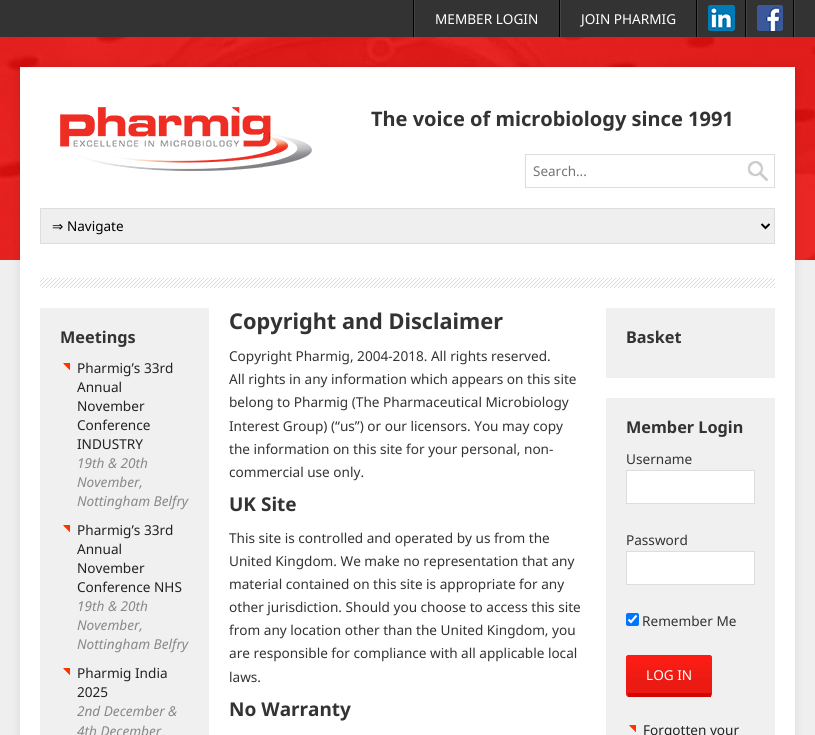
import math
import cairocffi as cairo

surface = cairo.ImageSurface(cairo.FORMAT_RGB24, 815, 735)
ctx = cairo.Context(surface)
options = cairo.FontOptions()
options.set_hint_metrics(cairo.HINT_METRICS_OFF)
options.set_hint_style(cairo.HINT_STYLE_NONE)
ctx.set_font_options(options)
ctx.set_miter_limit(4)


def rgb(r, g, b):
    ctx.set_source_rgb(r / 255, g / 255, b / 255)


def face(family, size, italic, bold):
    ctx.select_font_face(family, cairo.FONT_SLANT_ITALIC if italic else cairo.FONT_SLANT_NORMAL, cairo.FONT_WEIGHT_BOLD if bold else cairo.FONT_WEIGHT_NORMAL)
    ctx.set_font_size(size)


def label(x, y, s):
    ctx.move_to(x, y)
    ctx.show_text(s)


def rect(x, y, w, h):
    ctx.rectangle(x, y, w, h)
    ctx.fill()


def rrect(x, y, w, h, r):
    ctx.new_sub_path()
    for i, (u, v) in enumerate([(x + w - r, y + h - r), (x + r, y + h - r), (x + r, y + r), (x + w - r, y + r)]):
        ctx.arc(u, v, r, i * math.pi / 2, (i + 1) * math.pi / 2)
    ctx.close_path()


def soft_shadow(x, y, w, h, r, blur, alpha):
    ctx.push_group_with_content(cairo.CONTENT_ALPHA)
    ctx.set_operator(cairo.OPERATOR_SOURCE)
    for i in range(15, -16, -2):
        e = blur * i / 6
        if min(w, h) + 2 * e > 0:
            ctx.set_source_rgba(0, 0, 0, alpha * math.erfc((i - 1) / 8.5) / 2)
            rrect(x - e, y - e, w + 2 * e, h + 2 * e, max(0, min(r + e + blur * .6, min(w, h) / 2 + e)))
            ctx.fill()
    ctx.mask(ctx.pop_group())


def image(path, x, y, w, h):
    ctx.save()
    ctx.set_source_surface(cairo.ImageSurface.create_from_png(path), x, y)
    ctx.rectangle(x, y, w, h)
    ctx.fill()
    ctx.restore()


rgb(239, 239, 239)
ctx.paint()
image('image0.png', 0, 37, 815, 223)
rgb(51, 51, 51)
rect(0, 0, 815, 37)
rgb(68, 68, 68)
rect(794, 0, 1, 37)
rgb(0, 0, 0)
rect(413, 0, 1, 37)
rect(559, 0, 1, 37)
rgb(68, 68, 68)
rect(414, 0, 1, 37)
face('Noto Sans', 13.6, 0, 0)
rgb(255, 255, 255)
label(435, 24, 'MEMBER LOGIN')
rgb(0, 0, 0)
rect(696, 0, 1, 37)
rgb(68, 68, 68)
rect(560, 0, 1, 37)
rgb(255, 255, 255)
label(581, 24, 'JOIN PHARMIG')
rgb(0, 0, 0)
rect(745, 0, 1, 37)
rgb(68, 68, 68)
rect(697, 0, 1, 37)
image('image1.png', 708, 5, 27, 26)
rgb(0, 0, 0)
rect(793, 0, 1, 37)
rgb(68, 68, 68)
rect(746, 0, 1, 37)
image('image2.png', 757, 5, 26, 26)
rgb(0, 0, 0)
soft_shadow(20, 67, 775, 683, 0, 5, 0.1)
rgb(255, 255, 255)
rect(20, 67, 775, 668)
image('image3.png', 40, 278, 735, 10)
image('image4.png', 60, 107, 252, 64)
face('Noto Sans', 20, 0, 1)
rgb(51, 51, 51)
label(371, 126, 'The voice of microbiology since 1991')
ctx.rectangle(525.5, 154.5, 249, 33)
rgb(221, 221, 221)
ctx.set_line_width(1)
ctx.stroke()
face('Noto Sans', 13.5, 0, 0)
rgb(117, 117, 117)
label(533, 176, 'Search...')
image('image5.png', 748, 161, 20, 20)
rgb(239, 239, 239)
ctx.rectangle(40.5, 208.5, 734, 35)
ctx.fill_preserve()
rgb(221, 221, 221)
ctx.stroke()
ctx.new_path()
ctx.move_to(761.5, 224)
ctx.line_to(765.5, 228)
ctx.line_to(769.5, 224)
rgb(0, 0, 0)
ctx.set_line_width(2)
ctx.stroke()
face('DejaVu Sans', 13.5, 0, 0)
label(52, 231, '⇒')
face('Noto Sans', 13.5, 0, 0)
label(67, 231, 'Navigate')
rgb(240, 240, 240)
rect(40, 308, 169, 427)
face('Noto Sans', 16.25, 0, 1)
rgb(51, 51, 51)
label(60, 343, 'Meetings')
image('image6.png', 63, 363, 7, 7)
face('Noto Sans', 13.6, 0, 0)
rgb(34, 34, 34)
label(77, 373, 'Pharmig’s 33rd')
label(77, 392, 'Annual')
label(77, 411, 'November')
label(77, 430, 'Conference')
label(77, 449, 'INDUSTRY')
face('Noto Sans', 13.6, 1, 0)
rgb(136, 136, 136)
label(77, 468, '19th & 20th')
label(77, 487, 'November,')
label(77, 506, 'Nottingham Belfry')
image('image6.png', 63, 525, 7, 7)
face('Noto Sans', 13.6, 0, 0)
rgb(34, 34, 34)
label(77, 535, 'Pharmig’s 33rd')
label(77, 554, 'Annual')
label(77, 573, 'November')
label(77, 592, 'Conference NHS')
face('Noto Sans', 13.6, 1, 0)
rgb(136, 136, 136)
label(77, 611, '19th & 20th')
label(77, 630, 'November,')
label(77, 649, 'Nottingham Belfry')
image('image6.png', 63, 668, 7, 7)
face('Noto Sans', 13.6, 0, 0)
rgb(34, 34, 34)
label(77, 678, 'Pharmig India')
label(77, 697, '2025')
face('Noto Sans', 13.6, 1, 0)
rgb(136, 136, 136)
label(77, 716, '2nd December &')
label(77, 736, '4th December')
face('Noto Sans', 21.75, 0, 1)
rgb(51, 51, 51)
label(229, 329, 'Copyright and Disclaimer')
face('Noto Sans', 13.6, 0, 0)
label(229, 361, 'Copyright Pharmig, 2004-2018. All rights reserved.')
label(229, 384, 'All rights in any information which appears on this site')
label(229, 407, 'belong to Pharmig (The Pharmaceutical Microbiology')
label(229, 431, 'Interest Group) (“us”) or our licensors. You may copy')
label(229, 454, 'the information on this site for your personal, non-')
label(229, 477, 'commercial use only.')
face('Noto Sans', 19, 0, 1)
label(229, 511, 'UK Site')
face('Noto Sans', 13.6, 0, 0)
label(229, 543, 'This site is controlled and operated by us from the')
label(229, 566, 'United Kingdom. We make no representation that any')
label(229, 589, 'material contained on this site is appropriate for any')
label(229, 612, 'other jurisdiction. Should you choose to access this site')
label(229, 635, 'from any location other than the United Kingdom, you')
label(229, 658, 'are responsible for compliance with all applicable local')
label(229, 682, 'laws.')
face('Noto Sans', 19, 0, 1)
label(229, 716, 'No Warranty')
rgb(240, 240, 240)
rect(606, 308, 169, 70)
face('Noto Sans', 16.25, 0, 1)
rgb(51, 51, 51)
label(626, 343, 'Basket')
rgb(240, 240, 240)
rect(606, 398, 169, 337)
rgb(51, 51, 51)
label(626, 433, 'Member Login')
face('Noto Sans', 13.6, 0, 0)
label(626, 464, 'Username')
rgb(255, 255, 255)
ctx.rectangle(626.5, 470.5, 128, 33)
ctx.fill_preserve()
rgb(221, 221, 221)
ctx.set_line_width(1)
ctx.stroke()
rgb(51, 51, 51)
label(626, 545, 'Password')
rgb(255, 255, 255)
ctx.rectangle(626.5, 551.5, 128, 33)
ctx.fill_preserve()
rgb(221, 221, 221)
ctx.stroke()
rgb(0, 117, 255)
rrect(626, 613, 13, 13, 2)
ctx.fill()
ctx.new_path()
ctx.move_to(628.5, 619.5)
ctx.line_to(631, 622)
ctx.line_to(636.5, 615.5)
rgb(255, 255, 255)
ctx.set_line_width(2.1)
ctx.stroke()
rgb(51, 51, 51)
label(642, 626, 'Remember Me')
rgb(235, 27, 19)
rrect(626, 655, 86, 42, 3)
ctx.fill()
image('image7.png', 626, 655, 86, 23)
rgb(210, 8, 0)
rect(628, 693, 83, 4)
rgb(255, 255, 255)
label(646, 680, 'LOG IN')
image('image6.png', 629, 725, 7, 7)
rgb(34, 34, 34)
label(643, 735, 'Forgotten your')
surface.write_to_png('render.png')
